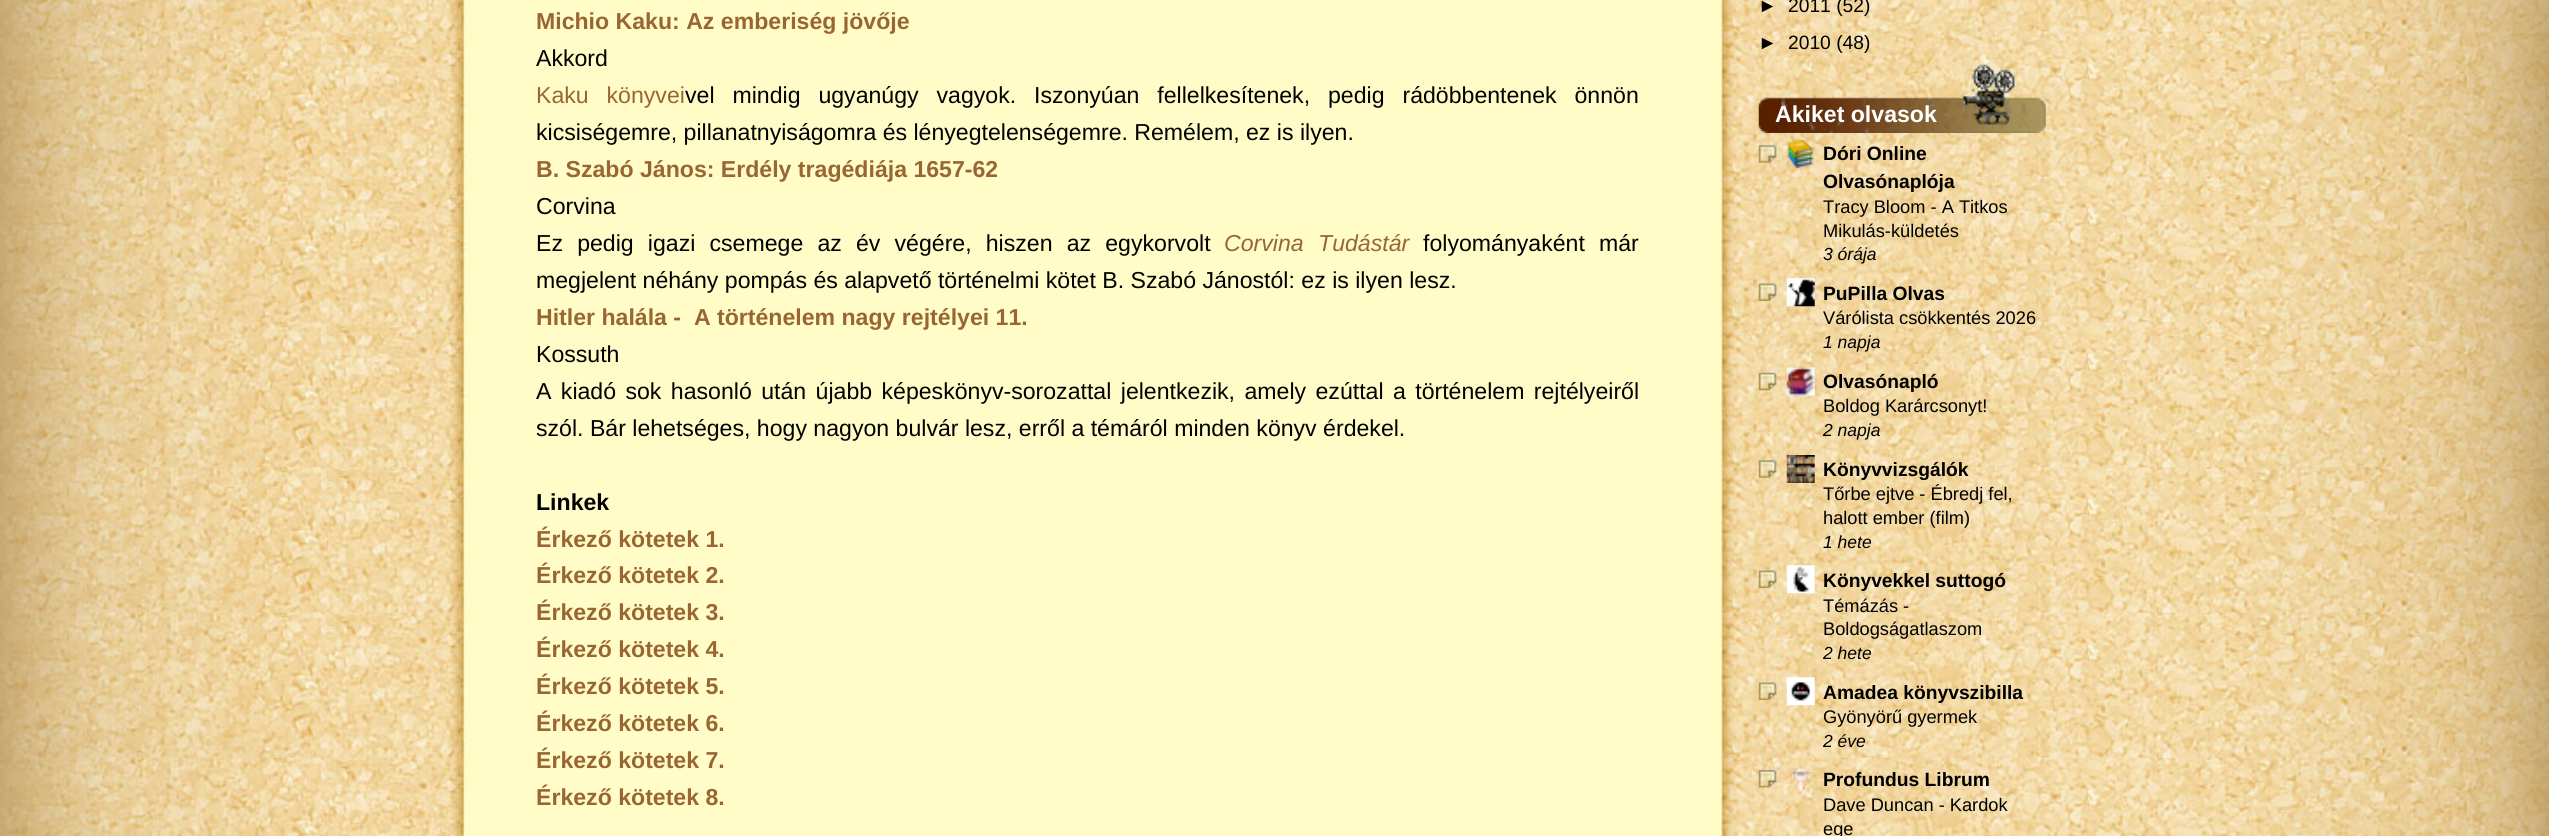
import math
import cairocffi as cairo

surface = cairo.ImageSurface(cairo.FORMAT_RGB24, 2549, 836)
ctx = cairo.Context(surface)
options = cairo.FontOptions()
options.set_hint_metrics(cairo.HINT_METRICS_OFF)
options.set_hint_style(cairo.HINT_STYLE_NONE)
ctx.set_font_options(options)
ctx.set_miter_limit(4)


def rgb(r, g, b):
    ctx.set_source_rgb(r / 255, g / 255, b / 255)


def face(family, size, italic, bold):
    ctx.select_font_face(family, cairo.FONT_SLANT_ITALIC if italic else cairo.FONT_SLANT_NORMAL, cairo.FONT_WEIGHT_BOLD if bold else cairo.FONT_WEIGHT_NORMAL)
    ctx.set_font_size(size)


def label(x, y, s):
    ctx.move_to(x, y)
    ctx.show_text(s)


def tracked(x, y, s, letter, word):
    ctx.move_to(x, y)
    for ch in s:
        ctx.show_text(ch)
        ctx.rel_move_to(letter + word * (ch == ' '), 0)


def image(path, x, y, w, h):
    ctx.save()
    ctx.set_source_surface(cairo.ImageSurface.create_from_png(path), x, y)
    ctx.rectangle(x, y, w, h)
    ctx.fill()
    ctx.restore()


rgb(255, 255, 255)
ctx.paint()
image('image0.png', 0, 0, 2549, 836)
image('image1.png', 418, 0, 1716, 836)
face('Liberation Sans', 23.1, 0, 1)
rgb(153, 102, 51)
label(536, 29, 'Michio Kaku: Az emberiség jövője')
face('Liberation Sans', 23.1, 0, 0)
rgb(0, 0, 0)
label(536, 66, 'Akkord')
rgb(153, 102, 51)
tracked(536, 103, 'Kaku könyvei', 0, 11.5)
rgb(0, 0, 0)
tracked(685, 103, 'vel mindig ugyanúgy vagyok. Iszonyúan fellelkesítenek, pedig rádöbbentenek önnön', 0, 11.5)
label(536, 140, 'kicsiségemre, pillanatnyiságomra és lényegtelenségemre. Remélem, ez is ilyen.')
face('Liberation Sans', 23.1, 0, 1)
rgb(153, 102, 51)
label(536, 177, 'B. Szabó János: Erdély tragédiája 1657-62')
face('Liberation Sans', 23.1, 0, 0)
rgb(0, 0, 0)
label(536, 214, 'Corvina')
tracked(536, 251, 'Ez pedig igazi csemege az év végére, hiszen az egykorvolt', 0, 7.75)
face('Liberation Sans', 23.1, 1, 0)
rgb(153, 102, 51)
tracked(1224, 251, 'Corvina Tudástár', 0, 8)
face('Liberation Sans', 23.1, 0, 0)
rgb(0, 0, 0)
tracked(1423, 251, 'folyományaként már', 0, 7.75)
label(536, 288, 'megjelent néhány pompás és alapvető történelmi kötet B. Szabó Jánostól: ez is ilyen lesz.')
face('Liberation Sans', 23.1, 0, 1)
rgb(153, 102, 51)
label(536, 325, 'Hitler halála -  A történelem nagy rejtélyei 11.')
face('Liberation Sans', 23.1, 0, 0)
rgb(0, 0, 0)
label(536, 362, 'Kossuth')
tracked(536, 399, 'A kiadó sok hasonló után újabb képeskönyv-sorozattal jelentkezik, amely ezúttal a történelem rejtélyeiről', 0, 3)
label(536, 436, 'szól. Bár lehetséges, hogy nagyon bulvár lesz, erről a témáról minden könyv érdekel.')
face('Liberation Sans', 23.1, 0, 1)
label(536, 510, 'Linkek')
rgb(153, 102, 51)
label(536, 547, 'Érkező kötetek 1.')
label(536, 583, 'Érkező kötetek 2.')
label(536, 620, 'Érkező kötetek 3.')
label(536, 657, 'Érkező kötetek 4.')
label(536, 694, 'Érkező kötetek 5.')
label(536, 731, 'Érkező kötetek 6.')
label(536, 768, 'Érkező kötetek 7.')
label(536, 805, 'Érkező kötetek 8.')
face('Liberation Sans', 19.25, 0, 0)
rgb(0, 0, 0)
label(1758, 12, '►')
label(1788, 12, '2011 (52)')
label(1758, 49, '►')
label(1788, 49, '2010 (48)')
image('image2.png', 1758, 64, 288, 69)
face('Liberation Sans', 23.1, 0, 1)
rgb(255, 255, 255)
label(1775, 122, 'Akiket olvasok')
image('image3.png', 1758, 145, 19, 18)
image('image4.png', 1786, 140, 28, 28)
face('Liberation Sans', 19.25, 0, 1)
rgb(0, 0, 0)
label(1823, 160, 'Dóri Online')
label(1823, 188, 'Olvasónaplója')
face('Liberation Sans', 18.25, 0, 0)
label(1823, 213, 'Tracy Bloom - A Titkos')
label(1823, 237, 'Mikulás-küldetés')
face('Liberation Sans', 17.5, 1, 0)
label(1823, 260, '3 órája')
image('image5.png', 1758, 283, 19, 18)
image('image6.png', 1786, 278, 29, 29)
face('Liberation Sans', 19.25, 0, 1)
label(1823, 300, 'PuPilla Olvas')
face('Liberation Sans', 18.25, 0, 0)
label(1823, 324, 'Várólista csökkentés 2026')
face('Liberation Sans', 17.5, 1, 0)
label(1823, 348, '1 napja')
image('image7.png', 1758, 372, 19, 19)
image('image8.png', 1786, 367, 29, 29)
face('Liberation Sans', 19.25, 0, 1)
label(1823, 388, 'Olvasónapló')
face('Liberation Sans', 18.25, 0, 0)
label(1823, 412, 'Boldog Karárcsonyt!')
face('Liberation Sans', 17.5, 1, 0)
label(1823, 436, '2 napja')
image('image9.png', 1758, 460, 19, 18)
image('image10.png', 1786, 455, 29, 28)
face('Liberation Sans', 19.25, 0, 1)
label(1823, 476, 'Könyvvizsgálók')
face('Liberation Sans', 18.25, 0, 0)
label(1823, 500, 'Tőrbe ejtve - Ébredj fel,')
label(1823, 524, 'halott ember (film)')
face('Liberation Sans', 17.5, 1, 0)
label(1823, 548, '1 hete')
image('image11.png', 1758, 570, 19, 18)
image('image12.png', 1786, 565, 29, 29)
face('Liberation Sans', 19.25, 0, 1)
label(1823, 587, 'Könyvekkel suttogó')
face('Liberation Sans', 18.25, 0, 0)
label(1823, 612, 'Témázás -')
label(1823, 635, 'Boldogságatlaszom')
face('Liberation Sans', 17.5, 1, 0)
label(1823, 659, '2 hete')
image('image13.png', 1758, 682, 19, 18)
image('image14.png', 1786, 677, 29, 29)
face('Liberation Sans', 19.25, 0, 1)
label(1823, 699, 'Amadea könyvszibilla')
face('Liberation Sans', 18.25, 0, 0)
label(1823, 723, 'Gyönyörű gyermek')
face('Liberation Sans', 17.5, 1, 0)
label(1823, 747, '2 éve')
image('image15.png', 1758, 770, 19, 18)
image('image16.png', 1790, 764, 22, 29)
face('Liberation Sans', 19.25, 0, 1)
label(1823, 786, 'Profundus Librum')
face('Liberation Sans', 18.25, 0, 0)
label(1823, 811, 'Dave Duncan - Kardok')
label(1823, 835, 'ege')
surface.write_to_png('render.png')
